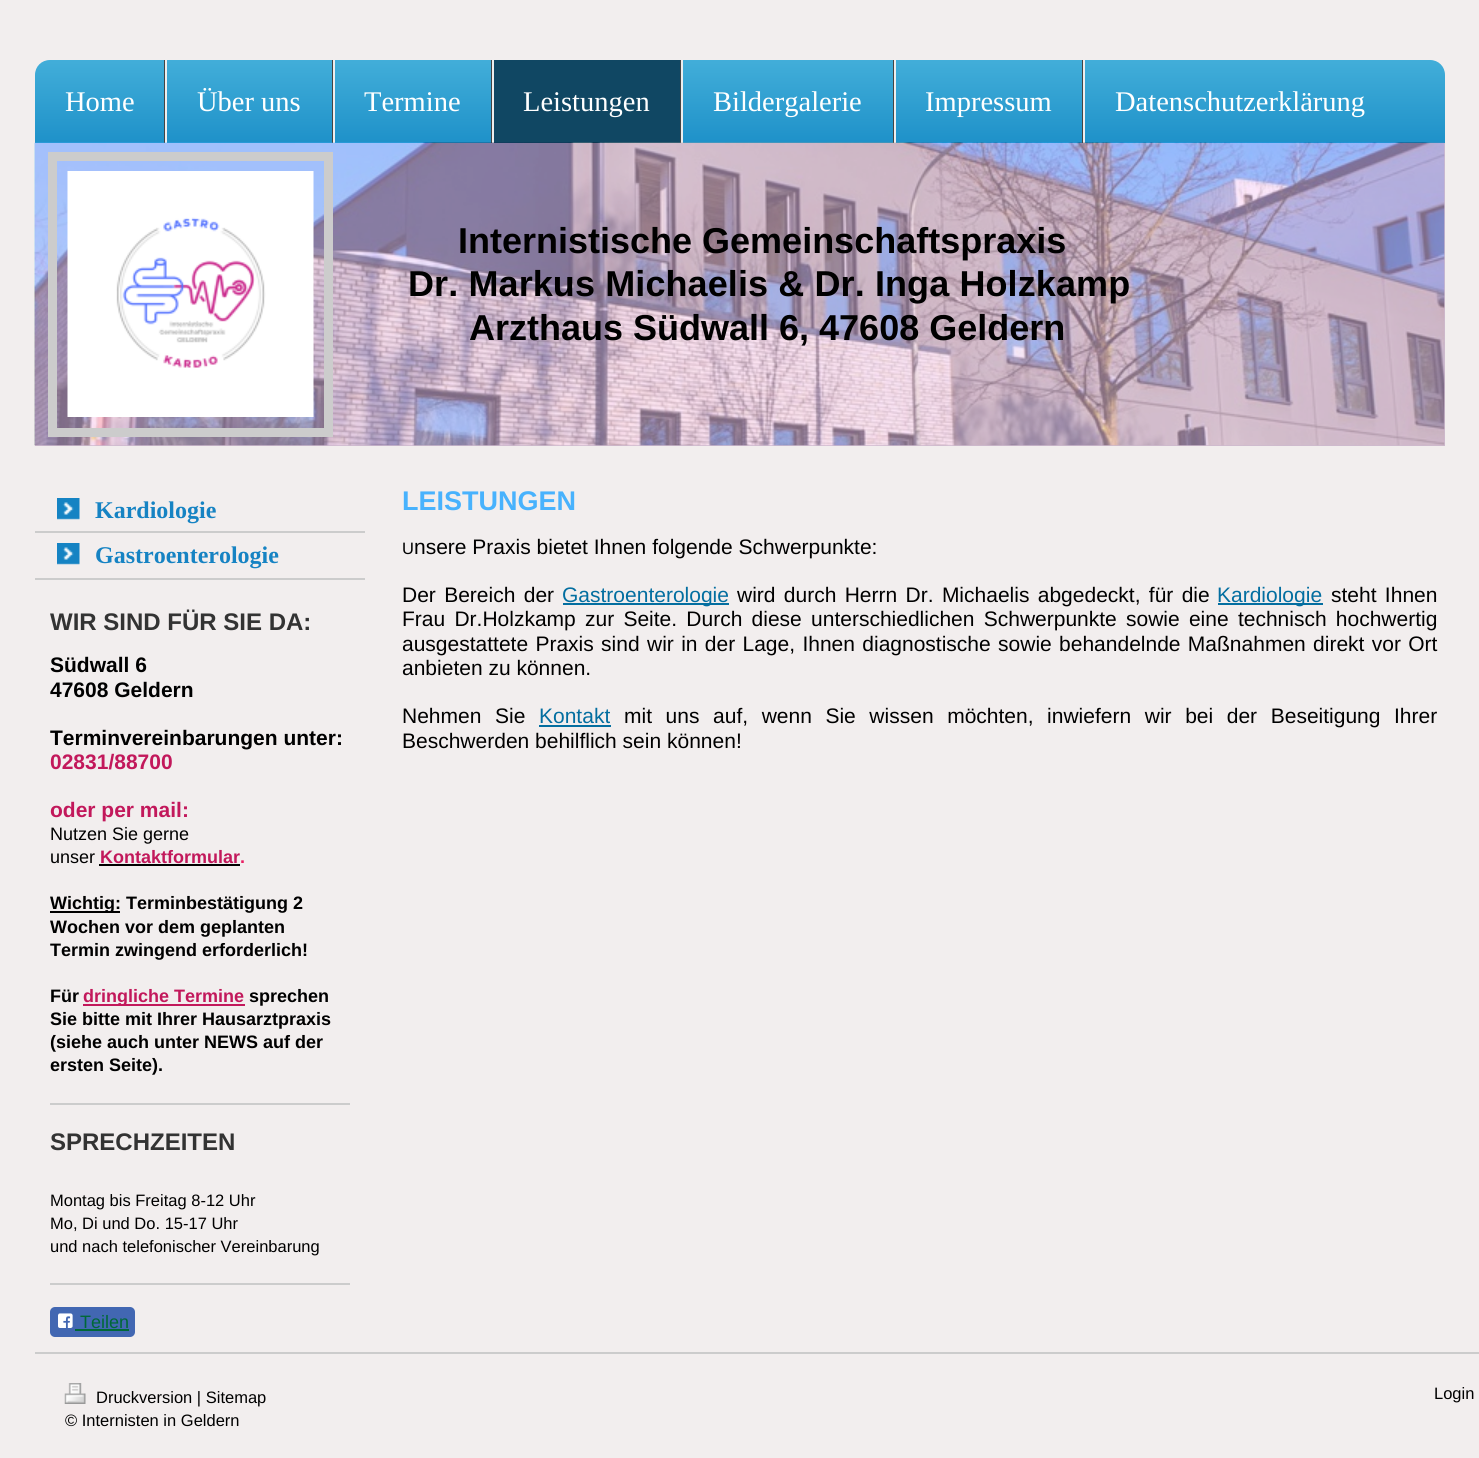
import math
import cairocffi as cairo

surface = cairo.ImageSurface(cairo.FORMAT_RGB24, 1479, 1458)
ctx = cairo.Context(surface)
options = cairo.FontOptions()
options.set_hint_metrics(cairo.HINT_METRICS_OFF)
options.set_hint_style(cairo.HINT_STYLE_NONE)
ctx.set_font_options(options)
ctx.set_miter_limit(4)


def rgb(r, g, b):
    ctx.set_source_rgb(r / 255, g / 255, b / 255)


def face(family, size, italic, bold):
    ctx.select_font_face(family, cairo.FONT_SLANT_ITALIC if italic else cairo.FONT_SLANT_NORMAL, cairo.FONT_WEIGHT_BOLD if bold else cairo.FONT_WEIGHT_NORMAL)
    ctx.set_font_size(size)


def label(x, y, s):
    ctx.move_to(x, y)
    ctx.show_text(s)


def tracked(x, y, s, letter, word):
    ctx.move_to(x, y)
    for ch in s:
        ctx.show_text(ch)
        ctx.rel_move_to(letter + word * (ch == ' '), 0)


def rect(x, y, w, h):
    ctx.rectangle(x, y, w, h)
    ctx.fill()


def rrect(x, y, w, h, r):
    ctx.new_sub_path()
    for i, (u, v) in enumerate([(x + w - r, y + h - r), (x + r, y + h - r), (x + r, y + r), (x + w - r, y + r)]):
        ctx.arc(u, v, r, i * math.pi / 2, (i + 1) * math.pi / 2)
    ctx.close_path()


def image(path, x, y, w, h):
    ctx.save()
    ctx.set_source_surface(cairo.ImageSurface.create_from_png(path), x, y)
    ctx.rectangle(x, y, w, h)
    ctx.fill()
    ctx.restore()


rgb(242, 238, 238)
ctx.paint()
gradient = cairo.LinearGradient(740, 60, 740, 143)
gradient.add_color_stop_rgba(0, 0.259, 0.682, 0.851, 1)
gradient.add_color_stop_rgba(1, 0.118, 0.569, 0.788, 1)
ctx.set_source(gradient)
ctx.new_path()
ctx.move_to(50, 60)
ctx.line_to(1430, 60)
ctx.curve_to(1438.5, 60, 1445, 66.5, 1445, 75)
ctx.line_to(1445, 143)
ctx.line_to(35, 143)
ctx.line_to(35, 75)
ctx.curve_to(35, 66.5, 41.5, 60, 50, 60)
ctx.close_path()
ctx.fill()
rgb(68, 68, 68)
rect(164, 60, 1, 83)
face('Liberation Serif', 28.5, 0, 0)
rgb(255, 255, 255)
label(65, 111, 'Home')
rgb(68, 68, 68)
rect(332, 60, 1, 83)
rgb(238, 238, 238)
rect(165, 60, 2, 83)
rgb(255, 255, 255)
label(197, 111, 'Über uns')
rgb(68, 68, 68)
rect(491, 60, 1, 83)
rgb(238, 238, 238)
rect(333, 60, 2, 83)
rgb(255, 255, 255)
label(364, 111, 'Termine')
rgb(68, 68, 68)
rect(680, 60, 1, 83)
rgb(238, 238, 238)
rect(492, 60, 2, 83)
rgb(16, 71, 99)
rect(494, 60, 186, 83)
rgb(255, 255, 255)
label(523, 111, 'Leistungen')
rgb(68, 68, 68)
rect(893, 60, 1, 83)
rgb(238, 238, 238)
rect(681, 60, 2, 83)
rgb(255, 255, 255)
label(713, 111, 'Bildergalerie')
rgb(68, 68, 68)
rect(1082, 60, 1, 83)
rgb(238, 238, 238)
rect(894, 60, 2, 83)
rgb(255, 255, 255)
label(925, 111, 'Impressum')
rgb(238, 238, 238)
rect(1083, 60, 2, 83)
rgb(255, 255, 255)
label(1115, 111, 'Datenschutzerklärung')
rgb(205, 185, 205)
rect(35, 143, 1410, 303)
image('image0.png', 34, 142, 1411, 304)
ctx.rectangle(52.5, 156.5, 276, 276)
rgb(204, 204, 204)
ctx.set_line_width(9)
ctx.stroke()
image('image1.png', 67, 171, 247, 246)
face('Liberation Sans', 36, 0, 1)
rgb(0, 0, 0)
label(458, 253, 'Internistische Gemeinschaftspraxis')
tracked(408, 296, 'Dr. Markus Michaelis & Dr. Inga Holzkamp', 0.1, 0)
label(469, 340, 'Arzthaus Südwall 6, 47608 Geldern')
rgb(204, 204, 204)
rect(35, 531, 330, 2)
image('image2.png', 57, 498, 23, 22)
face('Liberation Serif', 24, 0, 1)
rgb(22, 131, 195)
label(95, 518, 'Kardiologie')
rgb(204, 204, 204)
rect(35, 578, 330, 2)
image('image2.png', 57, 543, 23, 22)
rgb(22, 131, 195)
label(95, 563, 'Gastroenterologie')
face('Liberation Sans', 24, 0, 1)
rgb(51, 51, 51)
label(50, 630, 'WIR SIND FÜR SIE DA:')
face('Liberation Sans', 21, 0, 1)
rgb(0, 0, 0)
label(50, 672, 'Südwall 6')
label(50, 697, '47608 Geldern')
label(50, 745, 'Terminvereinbarungen unter:')
rgb(194, 24, 91)
label(50, 769, '02831/88700')
label(50, 817, 'oder per mail:')
face('Liberation Sans', 18, 0, 0)
rgb(0, 0, 0)
label(50, 840, 'Nutzen Sie gerne')
label(50, 863, 'unser')
face('Liberation Sans', 18, 0, 1)
rgb(194, 24, 91)
label(100, 863, 'Kontaktformular')
rgb(233, 30, 99)
label(240, 863, '.')
rgb(0, 0, 0)
rect(99, 864, 141, 2)
rect(50, 911, 70, 2)
label(50, 909, 'Wichtig: Terminbestätigung 2')
label(50, 933, 'Wochen vor dem geplanten')
label(50, 956, 'Termin zwingend erforderlich!')
label(50, 1002, 'Für')
rgb(194, 24, 91)
rect(83, 1004, 162, 2)
label(83, 1002, 'dringliche Termine')
rgb(0, 0, 0)
label(249, 1002, 'sprechen')
label(50, 1025, 'Sie bitte mit Ihrer Hausarztpraxis')
label(50, 1048, '(siehe auch unter NEWS auf der')
label(50, 1071, 'ersten Seite).')
rgb(204, 204, 204)
rect(50, 1103, 300, 2)
face('Liberation Sans', 24, 0, 1)
rgb(51, 51, 51)
label(50, 1150, 'SPRECHZEITEN')
face('Liberation Sans', 16.5, 0, 0)
rgb(0, 0, 0)
label(50, 1206, 'Montag bis Freitag 8-12 Uhr')
label(50, 1229, 'Mo, Di und Do. 15-17 Uhr')
label(50, 1252, 'und nach telefonischer Vereinbarung')
rgb(204, 204, 204)
rect(50, 1283, 300, 2)
rgb(66, 103, 178)
rrect(50, 1307, 85, 30, 5)
ctx.fill()
image('image3.png', 58, 1313, 15, 15)
face('Liberation Sans', 18, 0, 0)
rgb(0, 104, 55)
label(80, 1328, 'Teilen')
rect(75, 1329, 54, 2)
face('Liberation Sans', 27, 0, 1)
rgb(72, 178, 253)
label(402, 510, 'LEISTUNGEN')
face('Liberation Sans', 16.5, 0, 0)
rgb(0, 0, 0)
label(402, 554, 'U')
face('Liberation Sans', 21, 0, 0)
label(414, 554, 'nsere Praxis bietet Ihnen folgende Schwerpunkte:')
tracked(402, 602, 'Der Bereich der', 0, 2.5)
rgb(3, 110, 160)
rect(563, 603, 166, 2)
label(562, 602, 'Gastroenterologie')
rgb(0, 0, 0)
tracked(737, 602, 'wird durch Herrn Dr. Michaelis abgedeckt, für die', 0, 2.5)
rgb(3, 110, 160)
rect(1218, 603, 105, 2)
label(1217, 602, 'Kardiologie')
rgb(0, 0, 0)
tracked(1331, 602, 'steht Ihnen', 0, 2.5)
tracked(402, 626, 'Frau Dr.Holzkamp zur Seite. Durch diese unterschiedlichen Schwerpunkte sowie eine technisch hochwertig', 0, 3.4)
tracked(402, 651, 'ausgestattete Praxis sind wir in der Lage, Ihnen diagnostische sowie behandelnde Maßnahmen direkt vor Ort', 0, 1.5)
label(402, 675, 'anbieten zu können.')
tracked(402, 723, 'Nehmen Sie', 0, 7.75)
rgb(3, 110, 160)
label(539, 723, 'Kontakt')
rect(539, 725, 72, 2)
rgb(0, 0, 0)
tracked(624, 723, 'mit uns auf, wenn Sie wissen möchten, inwiefern wir bei der Beseitigung Ihrer', 0, 7.75)
label(402, 748, 'Beschwerden behilflich sein können!')
rgb(204, 204, 204)
rect(35, 1352, 1444, 2)
image('image4.png', 64, 1383, 22, 21)
face('Liberation Sans', 16.5, 0, 0)
rgb(0, 0, 0)
label(96, 1403, 'Druckversion | Sitemap')
ctx.save()
ctx.rectangle(65, 1383, 1410, 50)
ctx.clip()
label(65, 1426, '© Internisten in Geldern')
ctx.restore()
label(1434, 1399, 'Login')
surface.write_to_png('render.png')
